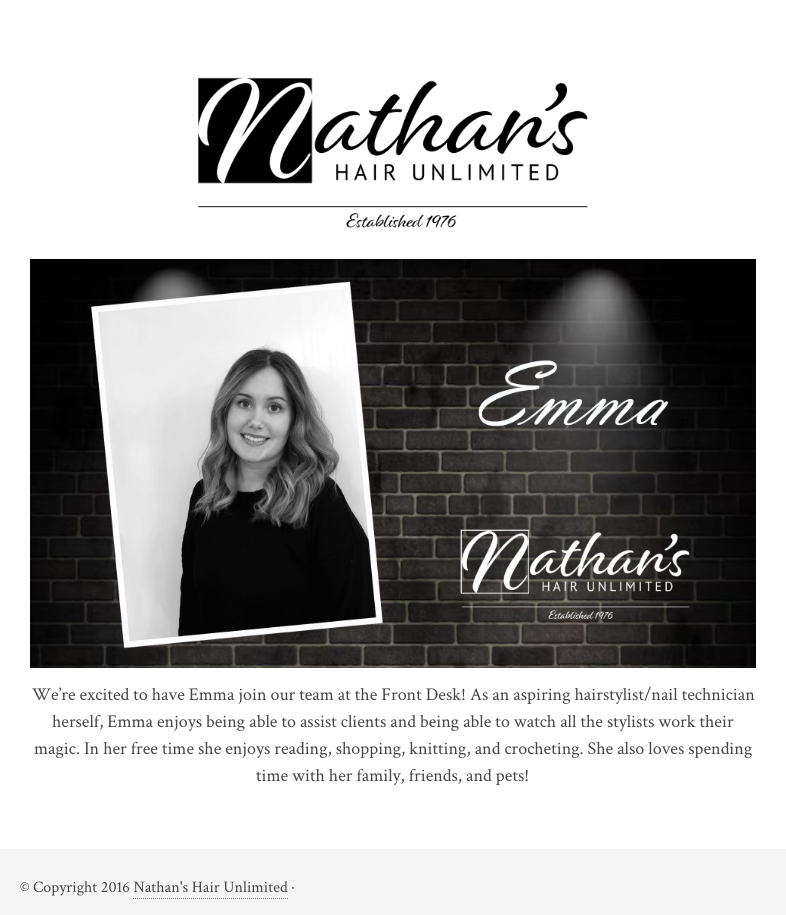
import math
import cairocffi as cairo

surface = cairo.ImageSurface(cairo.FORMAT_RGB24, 786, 915)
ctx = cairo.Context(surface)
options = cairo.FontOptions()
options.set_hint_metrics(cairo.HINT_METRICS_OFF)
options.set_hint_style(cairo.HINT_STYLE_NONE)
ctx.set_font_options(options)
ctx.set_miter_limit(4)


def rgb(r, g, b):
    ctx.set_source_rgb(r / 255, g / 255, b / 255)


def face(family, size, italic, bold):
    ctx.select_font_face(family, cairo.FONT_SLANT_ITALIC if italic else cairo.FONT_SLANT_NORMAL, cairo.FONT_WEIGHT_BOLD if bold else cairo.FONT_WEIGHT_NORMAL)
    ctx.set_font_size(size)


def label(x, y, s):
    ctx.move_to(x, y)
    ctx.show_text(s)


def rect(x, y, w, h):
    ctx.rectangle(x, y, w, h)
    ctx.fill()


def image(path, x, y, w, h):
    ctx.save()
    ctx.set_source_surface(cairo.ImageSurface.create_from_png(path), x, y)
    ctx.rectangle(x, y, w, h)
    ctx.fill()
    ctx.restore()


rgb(255, 255, 255)
ctx.paint()
image('image0.png', 198, 77, 390, 151)
image('image1.png', 30, 259, 726, 409)
face('Crimson Text', 18, 0, 0)
rgb(69, 69, 69)
label(32, 700, 'We’re excited to have Emma join our team at the Front Desk! As an aspiring hairstylist/nail technician')
label(52, 727, 'herself, Emma enjoys being able to assist clients and being able to watch all the stylists work their')
label(34, 754, 'magic. In her free time she enjoys reading, shopping, knitting, and crocheting. She also loves spending')
label(256, 781, 'time with her family, friends, and pets!')
rgb(245, 245, 245)
rect(0, 849, 786, 66)
face('Crimson Text', 16, 0, 0)
rgb(69, 69, 69)
label(20, 892, '© Copyright 2016 Nathan\'s Hair Unlimited ·')
ctx.new_path()
ctx.move_to(133, 898.5)
ctx.line_to(288, 898.5)
rgb(119, 119, 119)
ctx.set_line_width(1)
ctx.set_dash([1, 1])
ctx.stroke()
surface.write_to_png('render.png')
